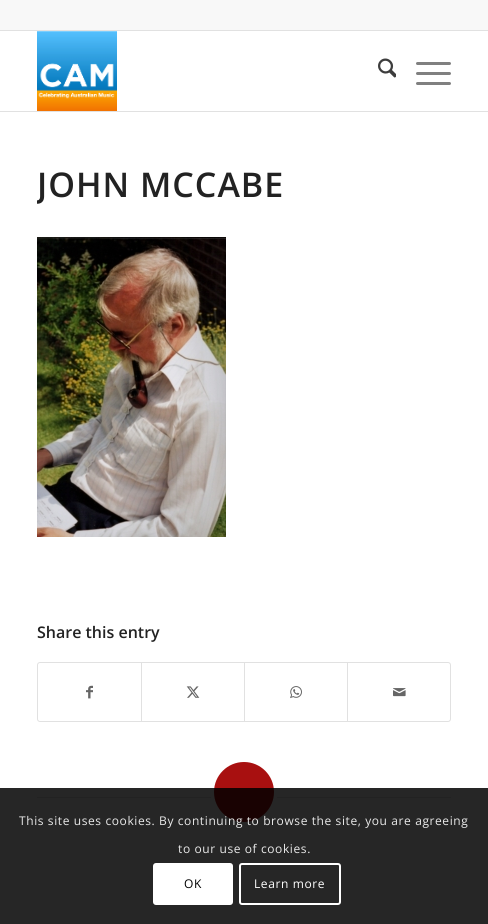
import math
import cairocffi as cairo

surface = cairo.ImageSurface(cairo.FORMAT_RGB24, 488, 924)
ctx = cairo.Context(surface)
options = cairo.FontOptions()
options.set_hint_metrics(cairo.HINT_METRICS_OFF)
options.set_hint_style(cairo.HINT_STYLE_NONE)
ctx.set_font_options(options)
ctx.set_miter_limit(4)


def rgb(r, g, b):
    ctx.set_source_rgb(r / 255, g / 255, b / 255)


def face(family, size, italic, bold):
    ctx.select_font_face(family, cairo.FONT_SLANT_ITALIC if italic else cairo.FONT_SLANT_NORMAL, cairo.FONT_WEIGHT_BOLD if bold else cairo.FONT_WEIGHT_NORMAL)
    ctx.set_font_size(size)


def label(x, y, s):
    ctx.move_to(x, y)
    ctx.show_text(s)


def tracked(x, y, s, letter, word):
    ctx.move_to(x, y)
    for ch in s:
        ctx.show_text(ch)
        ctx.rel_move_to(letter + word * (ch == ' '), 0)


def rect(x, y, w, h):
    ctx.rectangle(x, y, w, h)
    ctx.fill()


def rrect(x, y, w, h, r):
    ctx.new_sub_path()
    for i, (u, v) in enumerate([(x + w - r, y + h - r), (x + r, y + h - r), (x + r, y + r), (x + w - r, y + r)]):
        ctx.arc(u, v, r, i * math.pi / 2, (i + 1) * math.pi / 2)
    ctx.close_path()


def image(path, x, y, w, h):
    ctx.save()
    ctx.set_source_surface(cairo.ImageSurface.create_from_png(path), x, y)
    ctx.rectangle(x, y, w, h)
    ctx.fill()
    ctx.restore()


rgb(255, 255, 255)
ctx.paint()
rgb(248, 248, 248)
rect(0, 0, 488, 30)
rgb(225, 225, 225)
rect(0, 30, 488, 1)
rect(0, 111, 488, 1)
image('image0.png', 37, 31, 80, 80)
image('image1.png', 378, 58, 18, 20)
rgb(128, 128, 128)
rrect(416, 72, 35, 3, 1.5)
ctx.fill()
rrect(416, 62, 35, 3, 1.5)
ctx.fill()
rrect(416, 82, 35, 3, 1.5)
ctx.fill()
ctx.save()
ctx.rectangle(37, 162, 414, 600)
ctx.clip()
face('Open Sans SemiBold', 34, 0, 0)
rgb(34, 34, 34)
tracked(37, 197, 'JOHN MCCABE', 1, 0)
ctx.restore()
image('image2.png', 37, 237, 189, 300)
face('Open Sans SemiBold', 16, 0, 0)
rgb(34, 34, 34)
label(37, 638, 'Share this entry')
rrect(37.5, 662.5, 413, 59, 2.5)
rgb(225, 225, 225)
ctx.set_line_width(1)
ctx.stroke()
image('image3.png', 86, 685, 7, 14)
rect(141, 663, 1, 58)
image('image4.png', 186, 686, 14, 12)
rect(244, 663, 1, 58)
image('image5.png', 290, 686, 12, 13)
rect(347, 663, 1, 58)
image('image6.png', 393, 688, 13, 9)
rect(37, 797, 174, 1)
rgb(168, 16, 16)
ctx.arc(244, 792, 30, 0, 2 * math.pi)
ctx.fill()
rgb(225, 225, 225)
rect(277, 797, 174, 1)
ctx.set_source_rgba(0, 0, 0, 0.85)
rect(0, 788, 488, 136)
face('Open Sans', 12, 0, 0)
rgb(233, 233, 233)
tracked(19, 825, 'This site uses cookies. By continuing to browse the site, you are agreeing', 0.6, 0)
tracked(178, 853, 'to our use of cookies.', 0.6, 0)
rgb(255, 255, 255)
rrect(153, 863, 80, 42, 3)
ctx.fill()
rgb(0, 0, 0)
tracked(184, 888, 'OK', 0.6, 0)
rrect(240, 864, 100, 40, 2)
rgb(255, 255, 255)
ctx.set_line_width(2)
ctx.stroke()
tracked(254, 888, 'Learn more', 0.6, 0)
surface.write_to_png('render.png')
